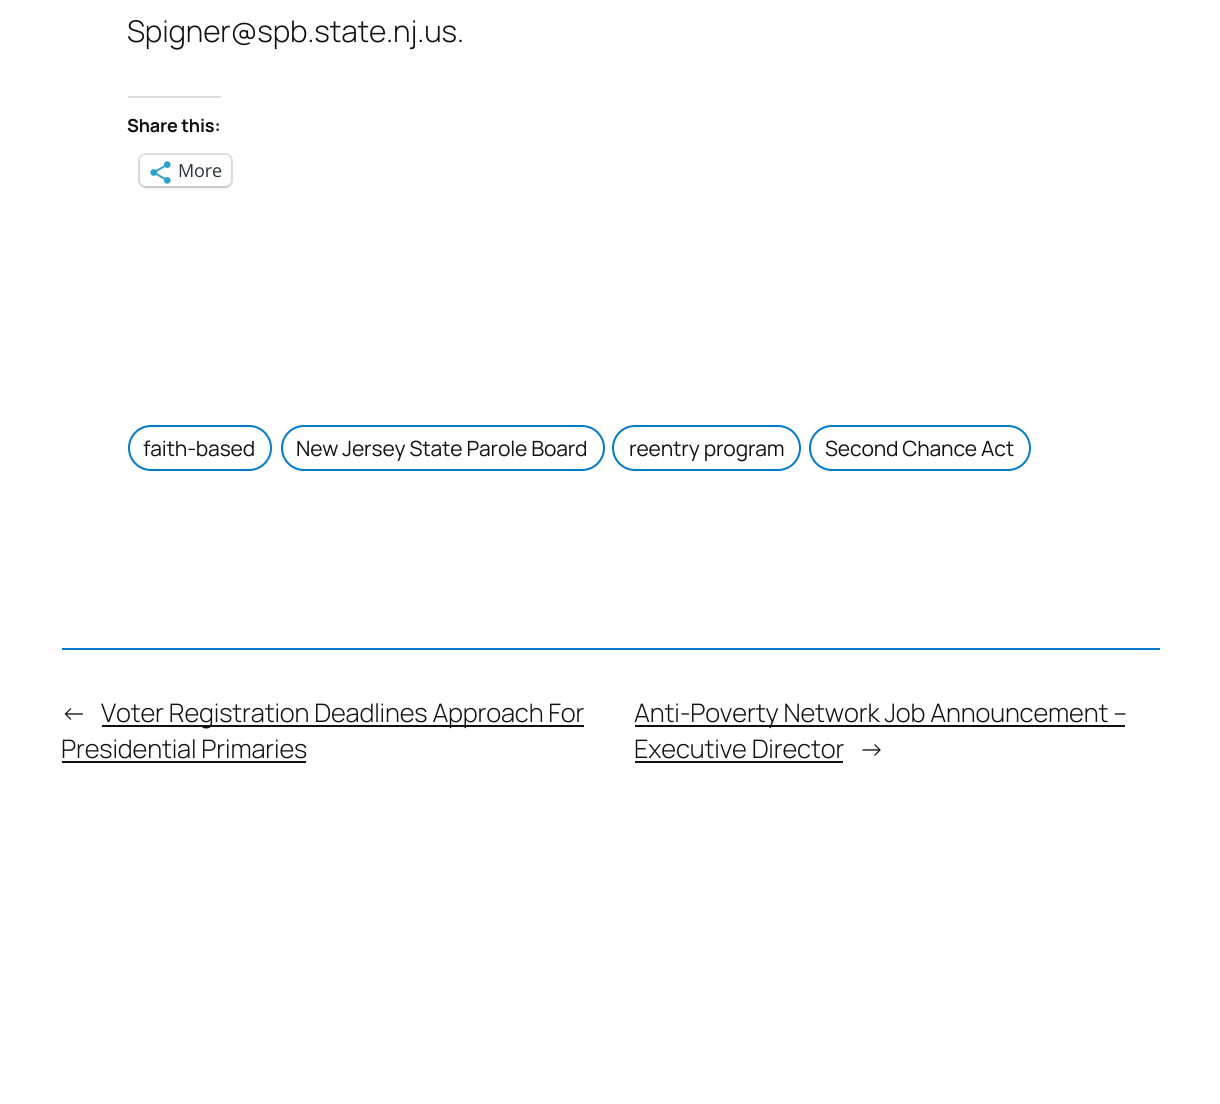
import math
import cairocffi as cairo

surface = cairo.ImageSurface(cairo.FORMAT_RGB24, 1220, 1104)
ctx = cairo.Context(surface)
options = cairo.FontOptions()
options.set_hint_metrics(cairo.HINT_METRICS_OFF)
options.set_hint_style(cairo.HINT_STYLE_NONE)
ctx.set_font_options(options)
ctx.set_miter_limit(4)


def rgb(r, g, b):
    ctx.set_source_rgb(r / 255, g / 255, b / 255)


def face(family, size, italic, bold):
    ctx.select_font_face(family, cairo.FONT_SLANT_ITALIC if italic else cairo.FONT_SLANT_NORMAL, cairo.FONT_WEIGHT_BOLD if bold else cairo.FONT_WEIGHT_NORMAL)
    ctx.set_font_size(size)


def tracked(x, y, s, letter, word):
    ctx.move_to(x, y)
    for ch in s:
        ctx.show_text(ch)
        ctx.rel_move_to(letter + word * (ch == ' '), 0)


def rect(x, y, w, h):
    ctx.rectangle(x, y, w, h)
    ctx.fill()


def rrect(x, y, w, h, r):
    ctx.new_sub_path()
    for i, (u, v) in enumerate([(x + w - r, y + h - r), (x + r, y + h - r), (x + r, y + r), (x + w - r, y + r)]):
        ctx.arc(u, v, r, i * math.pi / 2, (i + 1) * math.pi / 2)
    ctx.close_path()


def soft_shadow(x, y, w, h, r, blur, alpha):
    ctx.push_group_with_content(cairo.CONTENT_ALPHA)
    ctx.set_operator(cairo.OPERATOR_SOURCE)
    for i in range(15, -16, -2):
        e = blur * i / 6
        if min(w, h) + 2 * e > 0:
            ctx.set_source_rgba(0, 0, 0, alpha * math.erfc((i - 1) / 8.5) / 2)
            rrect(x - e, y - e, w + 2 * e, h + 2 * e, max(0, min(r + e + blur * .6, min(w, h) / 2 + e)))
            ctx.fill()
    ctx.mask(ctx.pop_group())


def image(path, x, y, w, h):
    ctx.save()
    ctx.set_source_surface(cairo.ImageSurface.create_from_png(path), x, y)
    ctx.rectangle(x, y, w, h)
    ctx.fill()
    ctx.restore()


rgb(255, 255, 255)
ctx.paint()
face('Manrope Light', 29.9, 0, 0)
rgb(17, 17, 17)
tracked(127, 42, 'Spigner@spb.state.nj.us.', -0.15, 0)
rgb(220, 220, 222)
rect(128, 96, 93, 2)
face('Manrope', 18, 0, 1)
rgb(17, 17, 17)
tracked(127, 132, 'Share this:', -0.15, 0)
rrect(139, 154, 93, 33, 7)
rgb(224, 224, 224)
ctx.stroke()
rgb(0, 0, 0)
soft_shadow(140, 156, 91, 32, 6, 1.5, 0.12)
rgb(255, 255, 255)
rrect(140, 155, 91, 31, 6)
ctx.fill()
image('image0.png', 150, 161, 21, 23)
face('Open Sans', 18, 0, 0)
rgb(44, 51, 56)
tracked(178, 177, 'More', -0.15, 0)
rrect(129, 426, 142, 44, 22)
rgb(0, 122, 204)
ctx.stroke()
face('Manrope', 21, 0, 0)
rgb(17, 17, 17)
tracked(143, 456, 'faith-based', -0.15, 0)
rrect(282, 426, 322, 44, 22)
rgb(0, 122, 204)
ctx.stroke()
rgb(17, 17, 17)
tracked(296, 456, 'New Jersey State Parole Board', -0.15, 0)
rrect(613, 426, 187, 44, 22)
rgb(0, 122, 204)
ctx.stroke()
rgb(17, 17, 17)
tracked(629, 456, 'reentry program', -0.15, 0)
rrect(810, 426, 220, 44, 22)
rgb(0, 122, 204)
ctx.stroke()
rgb(17, 17, 17)
tracked(825, 456, 'Second Chance Act', -0.15, 0)
rgb(0, 122, 204)
rect(62, 648, 1098, 2)
face('Manrope Light', 25.5, 0, 0)
rgb(17, 17, 17)
tracked(61, 722, '←', -0.15, 0)
rect(102, 725, 482, 2)
tracked(101, 722, 'Voter Registration Deadlines Approach For', -0.15, 0)
tracked(61, 758, 'Presidential Primaries', -0.15, 0)
rect(62, 761, 244, 2)
rect(635, 725, 490, 2)
tracked(634, 722, 'Anti-Poverty Network Job Announcement –', -0.15, 0)
tracked(634, 758, 'Executive Director', -0.15, 0)
rect(635, 761, 208, 2)
tracked(859, 758, '→', -0.15, 0)
surface.write_to_png('render.png')
